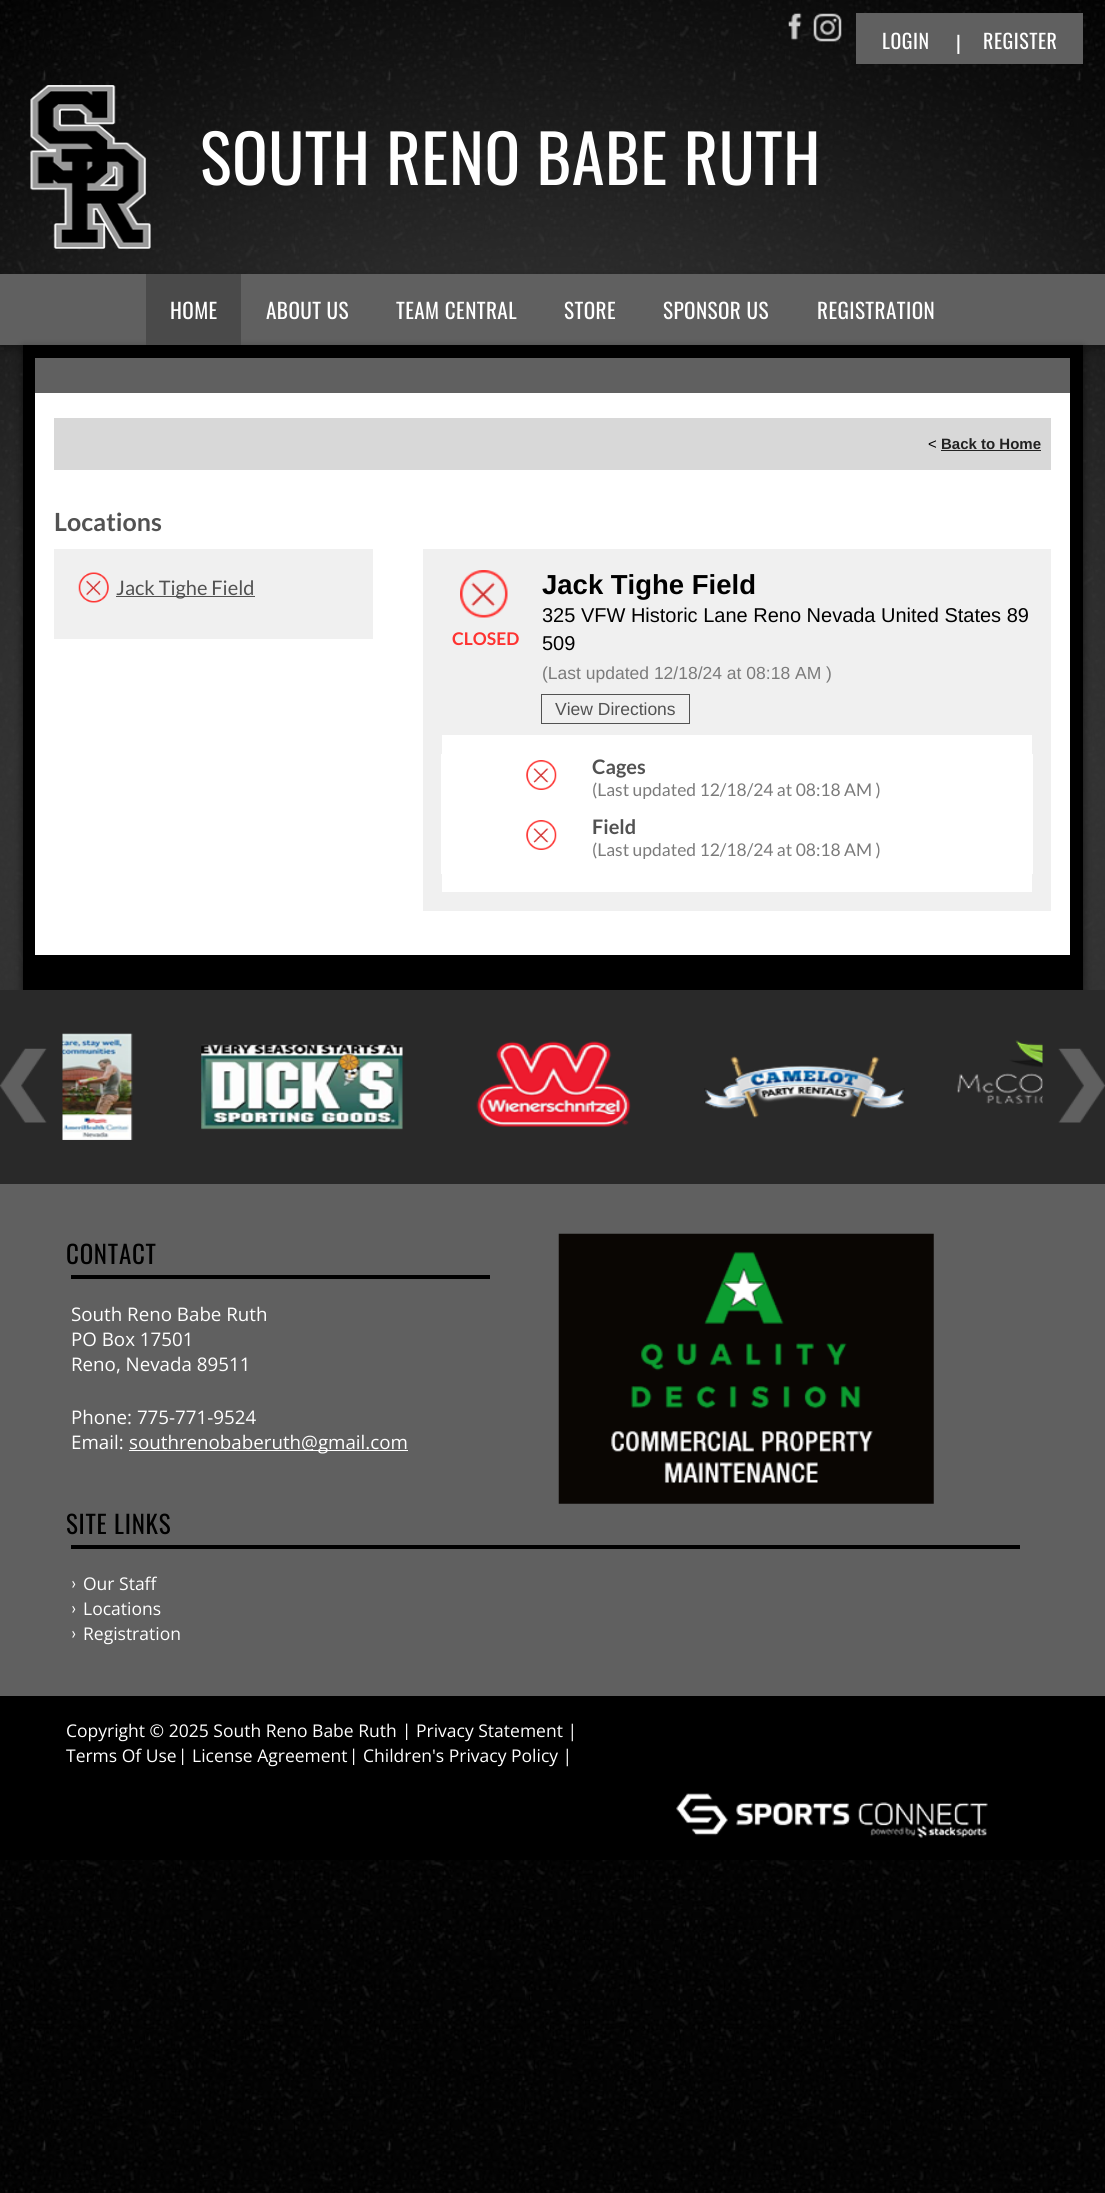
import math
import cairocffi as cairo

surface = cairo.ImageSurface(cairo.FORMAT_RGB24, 1105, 2193)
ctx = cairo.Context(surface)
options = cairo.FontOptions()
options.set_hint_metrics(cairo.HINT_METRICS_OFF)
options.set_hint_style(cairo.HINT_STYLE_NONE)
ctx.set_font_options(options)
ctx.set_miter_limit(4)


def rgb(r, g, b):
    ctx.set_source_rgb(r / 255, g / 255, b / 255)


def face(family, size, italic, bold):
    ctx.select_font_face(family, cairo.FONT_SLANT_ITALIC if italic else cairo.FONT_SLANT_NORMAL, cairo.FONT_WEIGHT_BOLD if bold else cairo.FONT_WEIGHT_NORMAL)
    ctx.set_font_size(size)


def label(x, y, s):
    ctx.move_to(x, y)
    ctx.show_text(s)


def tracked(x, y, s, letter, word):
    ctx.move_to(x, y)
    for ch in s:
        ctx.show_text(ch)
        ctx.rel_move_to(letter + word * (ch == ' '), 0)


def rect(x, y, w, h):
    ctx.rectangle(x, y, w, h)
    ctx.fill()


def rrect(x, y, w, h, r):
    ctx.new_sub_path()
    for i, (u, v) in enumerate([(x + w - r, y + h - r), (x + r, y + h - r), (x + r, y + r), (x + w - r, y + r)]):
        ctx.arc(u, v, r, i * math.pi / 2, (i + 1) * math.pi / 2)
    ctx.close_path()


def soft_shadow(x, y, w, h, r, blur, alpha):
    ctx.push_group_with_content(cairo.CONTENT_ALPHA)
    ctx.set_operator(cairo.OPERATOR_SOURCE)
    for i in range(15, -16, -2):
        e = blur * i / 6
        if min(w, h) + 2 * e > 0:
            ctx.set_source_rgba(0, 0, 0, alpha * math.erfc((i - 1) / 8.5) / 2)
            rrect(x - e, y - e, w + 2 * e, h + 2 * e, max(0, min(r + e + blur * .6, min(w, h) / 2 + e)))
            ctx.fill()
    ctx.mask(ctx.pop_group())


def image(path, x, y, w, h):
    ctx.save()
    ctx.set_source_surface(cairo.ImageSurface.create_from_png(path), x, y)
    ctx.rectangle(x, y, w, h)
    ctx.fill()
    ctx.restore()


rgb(255, 255, 255)
ctx.paint()
image('image0.png', 0, 0, 1105, 2193)
image('image1.png', 0, 0, 1105, 990)
image('image2.png', 788, 12, 14, 29)
image('image3.png', 813, 13, 29, 29)
rgb(96, 96, 96)
rect(856, 13, 227, 51)
face('Oswald', 20, 0, 0)
rgb(255, 255, 255)
tracked(882, 49, 'LOGIN', 0.5, 0)
tracked(956, 51, '|', 0.5, 0)
tracked(983, 49, 'REGISTER', 0.5, 0)
image('image4.png', 30, 85, 121, 164)
face('Oswald', 66.25, 0, 0)
tracked(200, 185, 'SOUTH RENO BABE RUTH', 0.6, 0)
rgb(0, 0, 0)
soft_shadow(0, 278, 1105, 71, 0, 4.5, 0.35)
rgb(96, 96, 96)
rect(0, 274, 1105, 71)
rgb(0, 0, 0)
soft_shadow(23, 349, 1060, 645, 0, 4.5, 0.61)
rgb(74, 74, 74)
rect(146, 274, 95, 71)
face('Oswald', 21.25, 0, 0)
rgb(255, 255, 255)
tracked(170, 319, 'HOME', 0.4, 0)
tracked(266, 319, 'ABOUT US', 0.4, 0)
tracked(396, 319, 'TEAM CENTRAL', 0.4, 0)
tracked(564, 319, 'STORE', 0.4, 0)
tracked(663, 319, 'SPONSOR US', 0.4, 0)
tracked(817, 319, 'REGISTRATION', 0.4, 0)
rgb(0, 0, 0)
rect(23, 345, 1060, 645)
rgb(96, 96, 96)
rect(35, 358, 1035, 35)
rgb(255, 255, 255)
rect(35, 393, 1035, 562)
rgb(216, 216, 216)
rect(54, 418, 997, 52)
face('Liberation Sans', 15, 0, 0)
rgb(0, 0, 0)
label(928, 449, '<')
face('Liberation Sans', 15, 0, 1)
rgb(34, 34, 34)
label(941, 449, 'Back to Home')
rect(941, 450, 100, 1)
face('Lato', 25, 0, 1)
rgb(82, 82, 82)
label(54, 531, 'Locations')
rgb(240, 240, 240)
rect(54, 549, 319, 90)
image('image5.png', 78, 572, 31, 31)
rgb(82, 82, 82)
rect(116, 596, 139, 1)
face('Lato', 20, 0, 0)
label(116, 595, 'Jack Tighe Field')
ctx.rectangle(432.5, 558.5, 609, 343)
rgb(240, 240, 240)
ctx.set_line_width(19)
ctx.stroke()
rect(442, 568, 590, 167)
face('Lato', 17.5, 0, 1)
rgb(254, 51, 49)
label(452, 645, 'CLOSED')
image('image6.png', 460, 570, 48, 48)
face('Liberation Sans', 27.5, 0, 1)
rgb(0, 0, 0)
label(542, 594, 'Jack Tighe Field')
face('Liberation Sans', 20, 0, 0)
label(542, 622, '325 VFW Historic Lane Reno Nevada United States 89')
label(542, 650, '509')
face('Liberation Sans', 17.5, 0, 0)
rgb(123, 123, 123)
label(542, 679, '(Last updated 12/18/24 at 08:18 AM )')
ctx.rectangle(541.5, 694.5, 148, 29)
rgb(82, 82, 82)
ctx.set_line_width(1)
ctx.stroke()
label(555, 715, 'View Directions')
rgb(255, 255, 255)
rect(441, 754, 592, 120)
image('image7.png', 526, 760, 31, 30)
face('Lato', 20, 0, 1)
rgb(82, 82, 82)
label(592, 774, 'Cages')
face('Lato', 17.5, 0, 0)
rgb(123, 123, 123)
label(592, 796, '(Last updated 12/18/24 at 08:18 AM )')
image('image7.png', 526, 820, 31, 30)
face('Lato', 20, 0, 1)
rgb(82, 82, 82)
label(592, 834, 'Field')
face('Lato', 17.5, 0, 0)
rgb(123, 123, 123)
label(592, 856, '(Last updated 12/18/24 at 08:18 AM )')
rgb(41, 41, 41)
rect(0, 990, 1105, 194)
image('image8.png', 0, 1048, 47, 75)
image('image9.png', 62, 1033, 71, 107)
image('image10.png', 201, 1044, 202, 86)
image('image11.png', 476, 1041, 155, 86)
image('image12.png', 704, 1056, 201, 62)
image('image13.png', 957, 1040, 86, 64)
image('image14.png', 1058, 1048, 47, 75)
rgb(96, 96, 96)
rect(0, 1184, 1105, 512)
face('Oswald', 25, 0, 0)
rgb(0, 0, 0)
tracked(66, 1264, 'CONTACT', 0.75, 0)
rect(71, 1275, 419, 4)
face('Open Sans', 18.75, 0, 0)
rgb(255, 255, 255)
label(71, 1321, 'South Reno Babe Ruth')
label(71, 1346, 'PO Box 17501')
label(71, 1371, 'Reno, Nevada 89511')
label(71, 1424, 'Phone: 775-771-9524')
label(71, 1449, 'Email:')
rect(129, 1450, 279, 1)
label(129, 1449, 'southrenobaberuth@gmail.com')
image('image15.png', 558, 1233, 376, 271)
face('Oswald', 25, 0, 0)
rgb(0, 0, 0)
tracked(66, 1534, 'SITE LINKS', 0.75, 0)
rect(71, 1545, 949, 4)
face('Lato', 17.5, 0, 0)
rgb(255, 255, 255)
label(71, 1589, '›')
face('Open Sans', 17.5, 0, 0)
label(83, 1590, 'Our Staff')
face('Lato', 17.5, 0, 0)
label(71, 1614, '›')
face('Open Sans', 17.5, 0, 0)
label(83, 1615, 'Locations')
face('Lato', 17.5, 0, 0)
label(71, 1639, '›')
face('Open Sans', 17.5, 0, 0)
label(83, 1640, 'Registration')
rgb(0, 0, 0)
rect(0, 1696, 1105, 164)
rgb(255, 255, 255)
label(66, 1737, 'Copyright © 2025 South Reno Babe Ruth')
face('Lato', 17.5, 0, 0)
label(404, 1737, '|')
face('Open Sans', 17.5, 0, 0)
label(416, 1737, 'Privacy Statement |')
label(66, 1762, 'Terms Of Use')
face('Lato', 17.5, 0, 0)
label(180, 1762, '|')
face('Open Sans', 17.5, 0, 0)
label(192, 1762, 'License Agreement')
face('Lato', 17.5, 0, 0)
label(351, 1762, '|')
face('Open Sans', 17.5, 0, 0)
label(363, 1762, 'Children\'s Privacy Policy |')
image('image16.png', 676, 1793, 312, 45)
surface.write_to_png('render.png')
